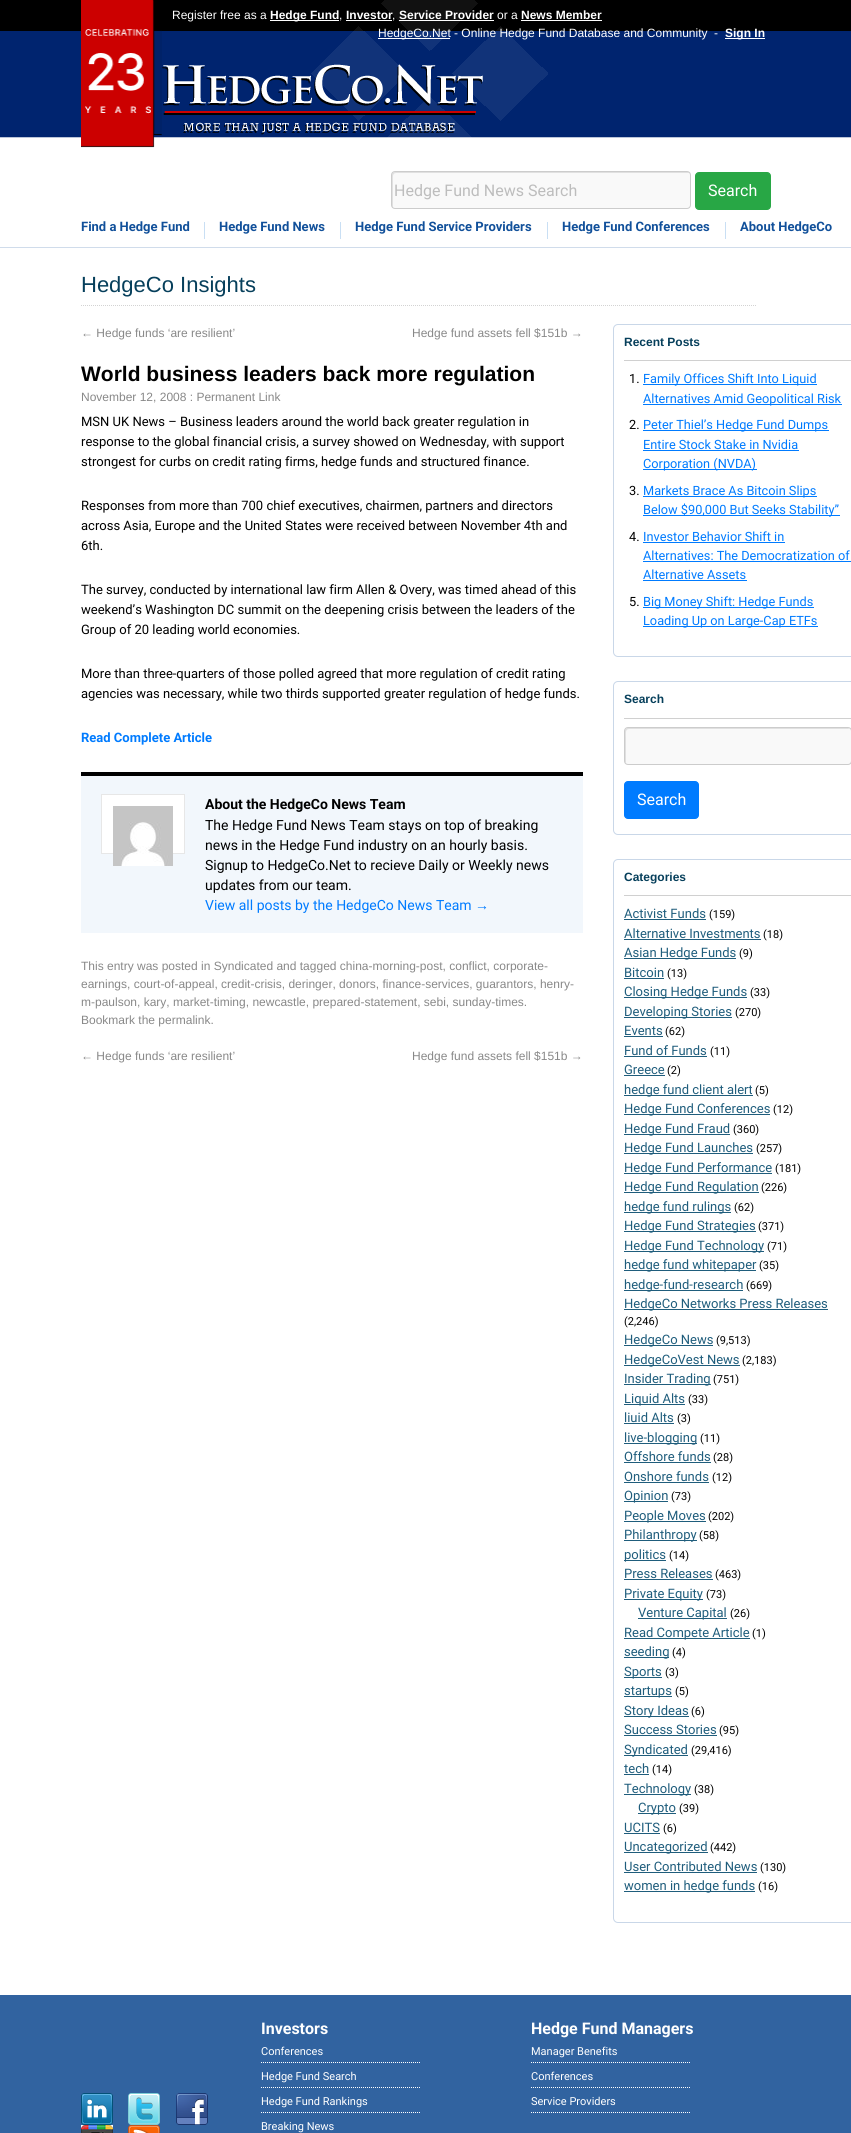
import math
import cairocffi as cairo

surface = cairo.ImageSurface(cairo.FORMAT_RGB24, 851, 2133)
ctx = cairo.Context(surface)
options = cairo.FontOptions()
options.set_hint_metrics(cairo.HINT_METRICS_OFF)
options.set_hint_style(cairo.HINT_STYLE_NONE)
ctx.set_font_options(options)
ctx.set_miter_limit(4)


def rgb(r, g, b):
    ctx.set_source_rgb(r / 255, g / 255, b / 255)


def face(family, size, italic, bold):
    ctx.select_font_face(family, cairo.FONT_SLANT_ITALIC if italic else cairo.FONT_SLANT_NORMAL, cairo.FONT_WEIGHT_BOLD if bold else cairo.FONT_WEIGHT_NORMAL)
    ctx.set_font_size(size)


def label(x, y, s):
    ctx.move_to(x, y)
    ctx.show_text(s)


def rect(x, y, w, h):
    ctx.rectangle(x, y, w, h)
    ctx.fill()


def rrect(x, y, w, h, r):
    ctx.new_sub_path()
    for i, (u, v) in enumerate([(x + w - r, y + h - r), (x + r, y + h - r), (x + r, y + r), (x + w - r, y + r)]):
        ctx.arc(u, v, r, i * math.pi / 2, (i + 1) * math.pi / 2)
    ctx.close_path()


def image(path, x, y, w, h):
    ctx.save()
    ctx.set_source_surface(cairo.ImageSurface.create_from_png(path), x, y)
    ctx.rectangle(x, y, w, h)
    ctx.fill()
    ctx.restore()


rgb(255, 255, 255)
ctx.paint()
rgb(208, 220, 235)
rect(0, 247, 851, 1)
image('image0.png', 0, 0, 851, 138)
image('image1.png', 311, 0, 237, 138)
image('image2.png', 81, 0, 81, 148)
face('Liberation Sans', 12, 0, 0)
rgb(255, 255, 255)
label(172, 19, 'Register free as a')
rect(270, 20, 69, 1)
face('Liberation Sans', 12, 0, 1)
label(270, 19, 'Hedge Fund')
face('Liberation Sans', 12, 0, 0)
label(339, 19, ',')
face('Liberation Sans', 12, 0, 1)
label(346, 19, 'Investor')
rect(346, 20, 46, 1)
face('Liberation Sans', 12, 0, 0)
label(392, 19, ',')
face('Liberation Sans', 12, 0, 1)
label(399, 19, 'Service Provider')
rect(399, 20, 95, 1)
face('Liberation Sans', 12, 0, 0)
label(497, 19, 'or a')
face('Liberation Sans', 12, 0, 1)
label(521, 19, 'News Member')
rect(521, 20, 81, 1)
rect(378, 38, 72, 1)
face('Liberation Sans', 12, 0, 0)
label(378, 37, 'HedgeCo.Net - Online Hedge Fund Database and Community')
label(714, 37, '-')
rect(725, 38, 40, 1)
face('Liberation Sans', 12, 0, 1)
label(725, 37, 'Sign In')
image('image3.png', 162, 64, 321, 71)
rgb(249, 249, 249)
rrect(391, 171, 300, 38, 4)
ctx.fill()
rgb(224, 224, 224)
ctx.new_path()
ctx.move_to(396, 173)
ctx.line_to(689, 173)
ctx.curve_to(689, 172, 688, 172, 687, 172)
ctx.line_to(395, 172)
ctx.curve_to(393, 172, 392, 173, 392, 175)
ctx.line_to(392, 205)
ctx.curve_to(392, 206, 392, 207, 393, 207)
ctx.line_to(393, 181)
ctx.curve_to(393, 178, 392, 173, 396, 173)
ctx.close_path()
ctx.fill()
rrect(391.5, 171.5, 299, 37, 3.5)
rgb(204, 204, 204)
ctx.set_line_width(1)
ctx.stroke()
face('Roboto', 16, 0, 0)
rgb(189, 189, 189)
label(394, 196, 'Hedge Fund News Search')
rgb(40, 167, 69)
rrect(695.5, 172.5, 75, 37, 3.5)
ctx.fill_preserve()
ctx.stroke()
rgb(255, 255, 255)
label(708, 196, 'Search')
face('Roboto', 13, 0, 1)
rgb(17, 80, 154)
label(81, 231, 'Find a Hedge Fund')
rgb(201, 223, 244)
rect(204, 222, 1, 17)
rgb(17, 80, 154)
label(219, 231, 'Hedge Fund News')
rgb(201, 223, 244)
rect(340, 222, 1, 17)
rgb(17, 80, 154)
label(355, 231, 'Hedge Fund Service Providers')
rgb(201, 223, 244)
rect(547, 222, 1, 17)
rgb(17, 80, 154)
label(562, 231, 'Hedge Fund Conferences')
rgb(201, 223, 244)
rect(725, 222, 1, 17)
rgb(17, 80, 154)
label(740, 231, 'About HedgeCo')
ctx.new_path()
ctx.move_to(81, 305.5)
ctx.line_to(756, 305.5)
rgb(211, 211, 211)
ctx.set_dash([1, 1])
ctx.stroke()
face('Liberation Sans', 22, 0, 0)
rgb(6, 63, 91)
label(81, 292, 'HedgeCo Insights')
face('Liberation Sans', 12, 0, 0)
rgb(136, 136, 136)
label(81, 337, '← Hedge funds ‘are resilient’')
label(412, 337, 'Hedge fund assets fell $151b →')
face('Liberation Sans', 21, 0, 1)
rgb(0, 0, 0)
label(81, 381, 'World business leaders back more regulation')
face('Liberation Sans', 12, 0, 0)
rgb(136, 136, 136)
label(81, 401, 'November 12, 2008 : Permanent Link')
face('Roboto', 13, 0, 0)
rgb(0, 0, 0)
label(81, 426, 'MSN UK News – Business leaders around the world back greater regulation in')
label(81, 446, 'response to the global financial crisis, a survey showed on Wednesday, with support')
label(81, 466, 'strongest for curbs on credit rating firms, hedge funds and structured finance.')
label(81, 510, 'Responses from more than 700 chief executives, chairmen, partners and directors')
label(81, 530, 'across Asia, Europe and the United States were received between November 4th and')
label(81, 550, '6th.')
label(81, 594, 'The survey, conducted by international law firm Allen & Overy, was timed ahead of this')
label(81, 614, 'weekend’s Washington DC summit on the deepening crisis between the leaders of the')
label(81, 634, 'Group of 20 leading world economies.')
label(81, 678, 'More than three-quarters of those polled agreed that more regulation of credit rating')
label(81, 698, 'agencies was necessary, while two thirds supported greater regulation of hedge funds.')
face('Roboto', 13, 0, 1)
rgb(0, 123, 255)
label(81, 742, 'Read Complete Article')
rgb(242, 247, 252)
rect(81, 776, 502, 157)
rgb(0, 0, 0)
rect(81, 772, 502, 4)
rgb(255, 255, 255)
ctx.rectangle(101.5, 794.5, 83, 59)
ctx.fill_preserve()
rgb(231, 231, 231)
ctx.set_dash([])
ctx.stroke()
image('image4.png', 113, 806, 60, 60)
face('Roboto', 14, 0, 1)
rgb(0, 0, 0)
label(205, 809, 'About the HedgeCo News Team')
face('Roboto', 14, 0, 0)
label(205, 830, 'The Hedge Fund News Team stays on top of breaking')
label(205, 850, 'news in the Hedge Fund industry on an hourly basis.')
label(205, 870, 'Signup to HedgeCo.Net to recieve Daily or Weekly news')
label(205, 890, 'updates from our team.')
rgb(0, 123, 255)
label(205, 910, 'View all posts by the HedgeCo News Team')
face('Liberation Sans', 14, 0, 0)
label(475, 910, '→')
face('Liberation Sans', 12, 0, 0)
rgb(136, 136, 136)
label(81, 970, 'This entry was posted in Syndicated and tagged china-morning-post, conflict, corporate-')
label(81, 988, 'earnings, court-of-appeal, credit-crisis, deringer, donors, finance-services, guarantors, henry-')
label(81, 1006, 'm-paulson, kary, market-timing, newcastle, prepared-statement, sebi, sunday-times.')
label(81, 1024, 'Bookmark the permalink.')
label(81, 1060, '← Hedge funds ‘are resilient’')
label(412, 1060, 'Hedge fund assets fell $151b →')
rrect(613.5, 324.5, 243, 332, 4.5)
rgb(201, 215, 232)
ctx.stroke()
face('Liberation Sans', 12, 0, 1)
rgb(6, 63, 91)
label(624, 346, 'Recent Posts')
rgb(208, 208, 208)
rect(624, 360, 227, 1)
face('Roboto', 12.75, 0, 0)
rgb(0, 0, 0)
label(629, 383, '1.')
rgb(0, 123, 255)
rect(643, 384, 174, 1)
label(643, 383, 'Family Offices Shift Into Liquid')
rect(643, 404, 199, 1)
label(643, 403, 'Alternatives Amid Geopolitical Risk')
rgb(0, 0, 0)
label(629, 429, '2.')
rgb(0, 123, 255)
rect(643, 430, 186, 1)
label(643, 429, 'Peter Thiel’s Hedge Fund Dumps')
label(643, 449, 'Entire Stock Stake in Nvidia')
rect(643, 450, 156, 1)
rect(643, 469, 114, 1)
label(643, 468, 'Corporation (NVDA)')
rgb(0, 0, 0)
label(629, 495, '3.')
rgb(0, 123, 255)
rect(643, 496, 174, 1)
label(643, 495, 'Markets Brace As Bitcoin Slips')
rect(643, 515, 197, 1)
label(643, 514, 'Below $90,000 But Seeks Stability”')
rgb(0, 0, 0)
label(629, 541, '4.')
rgb(0, 123, 255)
label(643, 541, 'Investor Behavior Shift in')
rect(643, 542, 142, 1)
label(643, 560, 'Alternatives: The Democratization of')
rect(643, 561, 208, 1)
label(643, 579, 'Alternative Assets')
rect(643, 580, 104, 1)
rgb(0, 0, 0)
label(629, 606, '5.')
rgb(0, 123, 255)
rect(643, 607, 171, 1)
label(643, 606, 'Big Money Shift: Hedge Funds')
rect(643, 626, 175, 1)
label(643, 625, 'Loading Up on Large-Cap ETFs')
rrect(613.5, 681.5, 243, 153, 4.5)
rgb(201, 215, 232)
ctx.stroke()
face('Liberation Sans', 12, 0, 1)
rgb(6, 63, 91)
label(624, 703, 'Search')
rgb(208, 208, 208)
rect(624, 718, 227, 1)
rgb(249, 249, 249)
rrect(624, 727, 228, 38, 4)
ctx.fill()
rgb(224, 224, 224)
ctx.new_path()
ctx.move_to(629, 729)
ctx.line_to(850, 729)
ctx.line_to(848, 728)
ctx.line_to(627, 728)
ctx.line_to(625, 730)
ctx.line_to(625, 762)
ctx.line_to(626, 763)
ctx.line_to(626, 737)
ctx.curve_to(626, 734, 625, 729, 629, 729)
ctx.close_path()
ctx.fill()
rrect(624.5, 727.5, 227, 37, 3.5)
rgb(204, 204, 204)
ctx.stroke()
rgb(0, 123, 255)
rrect(624.5, 781.5, 74, 37, 3.5)
ctx.fill_preserve()
ctx.stroke()
face('Roboto', 16, 0, 0)
rgb(255, 255, 255)
label(637, 805, 'Search')
rrect(613.5, 859.5, 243, 1063, 4.5)
rgb(201, 215, 232)
ctx.stroke()
face('Liberation Sans', 12, 0, 1)
rgb(6, 63, 91)
label(624, 881, 'Categories')
rgb(208, 208, 208)
rect(624, 895, 227, 1)
face('Roboto', 13, 0, 0)
rgb(31, 93, 124)
label(624, 918, 'Activist Funds')
rect(624, 919, 82, 1)
face('Roboto', 11, 0, 0)
rgb(0, 0, 0)
label(709, 918, '(159)')
face('Roboto', 13, 0, 0)
rgb(31, 93, 124)
label(624, 938, 'Alternative Investments')
rect(624, 939, 137, 1)
face('Roboto', 11, 0, 0)
rgb(0, 0, 0)
label(763, 938, '(18)')
rgb(31, 93, 124)
rect(624, 958, 112, 1)
face('Roboto', 13, 0, 0)
label(624, 957, 'Asian Hedge Funds')
face('Roboto', 11, 0, 0)
rgb(0, 0, 0)
label(739, 957, '(9)')
face('Roboto', 13, 0, 0)
rgb(31, 93, 124)
label(624, 977, 'Bitcoin')
rect(624, 978, 40, 1)
face('Roboto', 11, 0, 0)
rgb(0, 0, 0)
label(667, 977, '(13)')
rgb(31, 93, 124)
rect(624, 997, 123, 1)
face('Roboto', 13, 0, 0)
label(624, 996, 'Closing Hedge Funds')
face('Roboto', 11, 0, 0)
rgb(0, 0, 0)
label(750, 996, '(33)')
rgb(31, 93, 124)
rect(624, 1017, 108, 1)
face('Roboto', 13, 0, 0)
label(624, 1016, 'Developing Stories')
face('Roboto', 11, 0, 0)
rgb(0, 0, 0)
label(735, 1016, '(270)')
face('Roboto', 13, 0, 0)
rgb(31, 93, 124)
label(624, 1035, 'Events')
rect(624, 1036, 39, 1)
face('Roboto', 11, 0, 0)
rgb(0, 0, 0)
label(665, 1035, '(62)')
face('Roboto', 13, 0, 0)
rgb(31, 93, 124)
label(624, 1055, 'Fund of Funds')
rect(624, 1056, 83, 1)
face('Roboto', 11, 0, 0)
rgb(0, 0, 0)
label(710, 1055, '(11)')
face('Roboto', 13, 0, 0)
rgb(31, 93, 124)
label(624, 1074, 'Greece')
rect(624, 1075, 41, 1)
face('Roboto', 11, 0, 0)
rgb(0, 0, 0)
label(667, 1074, '(2)')
rgb(31, 93, 124)
rect(624, 1095, 129, 1)
face('Roboto', 13, 0, 0)
label(624, 1094, 'hedge fund client alert')
face('Roboto', 11, 0, 0)
rgb(0, 0, 0)
label(755, 1094, '(5)')
rgb(31, 93, 124)
rect(624, 1114, 146, 1)
face('Roboto', 13, 0, 0)
label(624, 1113, 'Hedge Fund Conferences')
face('Roboto', 11, 0, 0)
rgb(0, 0, 0)
label(773, 1113, '(12)')
rgb(31, 93, 124)
rect(624, 1134, 106, 1)
face('Roboto', 13, 0, 0)
label(624, 1133, 'Hedge Fund Fraud')
face('Roboto', 11, 0, 0)
rgb(0, 0, 0)
label(733, 1133, '(360)')
rgb(31, 93, 124)
rect(624, 1153, 129, 1)
face('Roboto', 13, 0, 0)
label(624, 1152, 'Hedge Fund Launches')
face('Roboto', 11, 0, 0)
rgb(0, 0, 0)
label(756, 1152, '(257)')
rgb(31, 93, 124)
rect(624, 1173, 148, 1)
face('Roboto', 13, 0, 0)
label(624, 1172, 'Hedge Fund Performance')
face('Roboto', 11, 0, 0)
rgb(0, 0, 0)
label(775, 1172, '(181)')
rgb(31, 93, 124)
rect(624, 1192, 135, 1)
face('Roboto', 13, 0, 0)
label(624, 1191, 'Hedge Fund Regulation')
face('Roboto', 11, 0, 0)
rgb(0, 0, 0)
label(761, 1191, '(226)')
rgb(31, 93, 124)
rect(624, 1212, 107, 1)
face('Roboto', 13, 0, 0)
label(624, 1211, 'hedge fund rulings')
face('Roboto', 11, 0, 0)
rgb(0, 0, 0)
label(734, 1211, '(62)')
rgb(31, 93, 124)
rect(624, 1231, 132, 1)
face('Roboto', 13, 0, 0)
label(624, 1230, 'Hedge Fund Strategies')
face('Roboto', 11, 0, 0)
rgb(0, 0, 0)
label(758, 1230, '(371)')
rgb(31, 93, 124)
rect(624, 1251, 140, 1)
face('Roboto', 13, 0, 0)
label(624, 1250, 'Hedge Fund Technology')
face('Roboto', 11, 0, 0)
rgb(0, 0, 0)
label(767, 1250, '(71)')
rgb(31, 93, 124)
rect(624, 1270, 132, 1)
face('Roboto', 13, 0, 0)
label(624, 1269, 'hedge fund whitepaper')
face('Roboto', 11, 0, 0)
rgb(0, 0, 0)
label(759, 1269, '(35)')
rgb(31, 93, 124)
rect(624, 1290, 119, 1)
face('Roboto', 13, 0, 0)
label(624, 1289, 'hedge-fund-research')
face('Roboto', 11, 0, 0)
rgb(0, 0, 0)
label(746, 1289, '(669)')
rgb(31, 93, 124)
rect(624, 1309, 204, 1)
face('Roboto', 13, 0, 0)
label(624, 1308, 'HedgeCo Networks Press Releases')
face('Roboto', 11, 0, 0)
rgb(0, 0, 0)
label(624, 1325, '(2,246)')
rgb(31, 93, 124)
rect(624, 1345, 89, 1)
face('Roboto', 13, 0, 0)
label(624, 1344, 'HedgeCo News')
face('Roboto', 11, 0, 0)
rgb(0, 0, 0)
label(716, 1344, '(9,513)')
rgb(31, 93, 124)
rect(624, 1365, 116, 1)
face('Roboto', 13, 0, 0)
label(624, 1364, 'HedgeCoVest News')
face('Roboto', 11, 0, 0)
rgb(0, 0, 0)
label(742, 1364, '(2,183)')
rgb(31, 93, 124)
rect(624, 1384, 87, 1)
face('Roboto', 13, 0, 0)
label(624, 1383, 'Insider Trading')
face('Roboto', 11, 0, 0)
rgb(0, 0, 0)
label(713, 1383, '(751)')
rgb(31, 93, 124)
rect(624, 1404, 61, 1)
face('Roboto', 13, 0, 0)
label(624, 1403, 'Liquid Alts')
face('Roboto', 11, 0, 0)
rgb(0, 0, 0)
label(688, 1403, '(33)')
face('Roboto', 13, 0, 0)
rgb(31, 93, 124)
label(624, 1422, 'liuid Alts')
rect(624, 1423, 50, 1)
face('Roboto', 11, 0, 0)
rgb(0, 0, 0)
label(677, 1422, '(3)')
rgb(31, 93, 124)
rect(624, 1443, 73, 1)
face('Roboto', 13, 0, 0)
label(624, 1442, 'live-blogging')
face('Roboto', 11, 0, 0)
rgb(0, 0, 0)
label(700, 1442, '(11)')
face('Roboto', 13, 0, 0)
rgb(31, 93, 124)
label(624, 1461, 'Offshore funds')
rect(624, 1462, 87, 1)
face('Roboto', 11, 0, 0)
rgb(0, 0, 0)
label(713, 1461, '(28)')
face('Roboto', 13, 0, 0)
rgb(31, 93, 124)
label(624, 1481, 'Onshore funds')
rect(624, 1482, 85, 1)
face('Roboto', 11, 0, 0)
rgb(0, 0, 0)
label(712, 1481, '(12)')
rgb(31, 93, 124)
rect(624, 1501, 44, 1)
face('Roboto', 13, 0, 0)
label(624, 1500, 'Opinion')
face('Roboto', 11, 0, 0)
rgb(0, 0, 0)
label(671, 1500, '(73)')
rgb(31, 93, 124)
rect(624, 1521, 82, 1)
face('Roboto', 13, 0, 0)
label(624, 1520, 'People Moves')
face('Roboto', 11, 0, 0)
rgb(0, 0, 0)
label(708, 1520, '(202)')
rgb(31, 93, 124)
rect(624, 1540, 73, 1)
face('Roboto', 13, 0, 0)
label(624, 1539, 'Philanthropy')
face('Roboto', 11, 0, 0)
rgb(0, 0, 0)
label(699, 1539, '(58)')
rgb(31, 93, 124)
rect(624, 1560, 42, 1)
face('Roboto', 13, 0, 0)
label(624, 1559, 'politics')
face('Roboto', 11, 0, 0)
rgb(0, 0, 0)
label(669, 1559, '(14)')
face('Roboto', 13, 0, 0)
rgb(31, 93, 124)
label(624, 1578, 'Press Releases')
rect(624, 1579, 89, 1)
face('Roboto', 11, 0, 0)
rgb(0, 0, 0)
label(715, 1578, '(463)')
rgb(31, 93, 124)
rect(624, 1599, 79, 1)
face('Roboto', 13, 0, 0)
label(624, 1598, 'Private Equity')
face('Roboto', 11, 0, 0)
rgb(0, 0, 0)
label(706, 1598, '(73)')
rgb(31, 93, 124)
rect(638, 1618, 89, 1)
face('Roboto', 13, 0, 0)
label(638, 1617, 'Venture Capital')
face('Roboto', 11, 0, 0)
rgb(0, 0, 0)
label(730, 1617, '(26)')
rgb(31, 93, 124)
rect(624, 1638, 126, 1)
face('Roboto', 13, 0, 0)
label(624, 1637, 'Read Compete Article')
face('Roboto', 11, 0, 0)
rgb(0, 0, 0)
label(752, 1637, '(1)')
rgb(31, 93, 124)
rect(624, 1657, 45, 1)
face('Roboto', 13, 0, 0)
label(624, 1656, 'seeding')
face('Roboto', 11, 0, 0)
rgb(0, 0, 0)
label(672, 1656, '(4)')
rgb(31, 93, 124)
rect(624, 1677, 38, 1)
face('Roboto', 13, 0, 0)
label(624, 1676, 'Sports')
face('Roboto', 11, 0, 0)
rgb(0, 0, 0)
label(665, 1676, '(3)')
rgb(31, 93, 124)
rect(624, 1696, 48, 1)
face('Roboto', 13, 0, 0)
label(624, 1695, 'startups')
face('Roboto', 11, 0, 0)
rgb(0, 0, 0)
label(675, 1695, '(5)')
rgb(31, 93, 124)
rect(624, 1716, 65, 1)
face('Roboto', 13, 0, 0)
label(624, 1715, 'Story Ideas')
face('Roboto', 11, 0, 0)
rgb(0, 0, 0)
label(691, 1715, '(6)')
face('Roboto', 13, 0, 0)
rgb(31, 93, 124)
label(624, 1734, 'Success Stories')
rect(624, 1735, 93, 1)
face('Roboto', 11, 0, 0)
rgb(0, 0, 0)
label(719, 1734, '(95)')
rgb(31, 93, 124)
rect(624, 1755, 64, 1)
face('Roboto', 13, 0, 0)
label(624, 1754, 'Syndicated')
face('Roboto', 11, 0, 0)
rgb(0, 0, 0)
label(691, 1754, '(29,416)')
face('Roboto', 13, 0, 0)
rgb(31, 93, 124)
label(624, 1773, 'tech')
rect(624, 1774, 25, 1)
face('Roboto', 11, 0, 0)
rgb(0, 0, 0)
label(652, 1773, '(14)')
rgb(31, 93, 124)
rect(624, 1794, 67, 1)
face('Roboto', 13, 0, 0)
label(624, 1793, 'Technology')
face('Roboto', 11, 0, 0)
rgb(0, 0, 0)
label(694, 1793, '(38)')
rgb(31, 93, 124)
rect(638, 1813, 38, 1)
face('Roboto', 13, 0, 0)
label(638, 1812, 'Crypto')
face('Roboto', 11, 0, 0)
rgb(0, 0, 0)
label(679, 1812, '(39)')
face('Roboto', 13, 0, 0)
rgb(31, 93, 124)
label(624, 1832, 'UCITS')
rect(624, 1833, 36, 1)
face('Roboto', 11, 0, 0)
rgb(0, 0, 0)
label(663, 1832, '(6)')
rgb(31, 93, 124)
rect(624, 1852, 84, 1)
face('Roboto', 13, 0, 0)
label(624, 1851, 'Uncategorized')
face('Roboto', 11, 0, 0)
rgb(0, 0, 0)
label(710, 1851, '(442)')
face('Roboto', 13, 0, 0)
rgb(31, 93, 124)
label(624, 1871, 'User Contributed News')
rect(624, 1872, 133, 1)
face('Roboto', 11, 0, 0)
rgb(0, 0, 0)
label(760, 1871, '(130)')
rgb(31, 93, 124)
rect(624, 1891, 131, 1)
face('Roboto', 13, 0, 0)
label(624, 1890, 'women in hedge funds')
face('Roboto', 11, 0, 0)
rgb(0, 0, 0)
label(758, 1890, '(16)')
rgb(49, 99, 160)
rect(0, 1995, 851, 138)
image('image5.png', 81, 2093, 32, 32)
image('image6.png', 128, 2093, 32, 32)
image('image7.png', 176, 2093, 32, 32)
image('image8.png', 81, 2125, 32, 8)
image('image9.png', 128, 2125, 32, 8)
face('Roboto', 16, 0, 1)
rgb(255, 255, 255)
label(261, 2034, 'Investors')
ctx.new_path()
ctx.move_to(261, 2062.5)
ctx.line_to(421, 2062.5)
ctx.set_dash([1, 1])
ctx.stroke()
face('Roboto', 11, 0, 0)
label(261, 2055, 'Conferences')
ctx.new_path()
ctx.move_to(261, 2087.5)
ctx.line_to(421, 2087.5)
ctx.stroke()
label(261, 2080, 'Hedge Fund Search')
ctx.new_path()
ctx.move_to(261, 2112.5)
ctx.line_to(421, 2112.5)
ctx.stroke()
label(261, 2105, 'Hedge Fund Rankings')
label(261, 2130, 'Breaking News')
face('Roboto', 16, 0, 1)
label(531, 2034, 'Hedge Fund Managers')
ctx.new_path()
ctx.move_to(531, 2062.5)
ctx.line_to(691, 2062.5)
ctx.stroke()
face('Roboto', 11, 0, 0)
label(531, 2055, 'Manager Benefits')
ctx.new_path()
ctx.move_to(531, 2087.5)
ctx.line_to(691, 2087.5)
ctx.stroke()
label(531, 2080, 'Conferences')
ctx.new_path()
ctx.move_to(531, 2112.5)
ctx.line_to(691, 2112.5)
ctx.stroke()
label(531, 2105, 'Service Providers')
surface.write_to_png('render.png')
